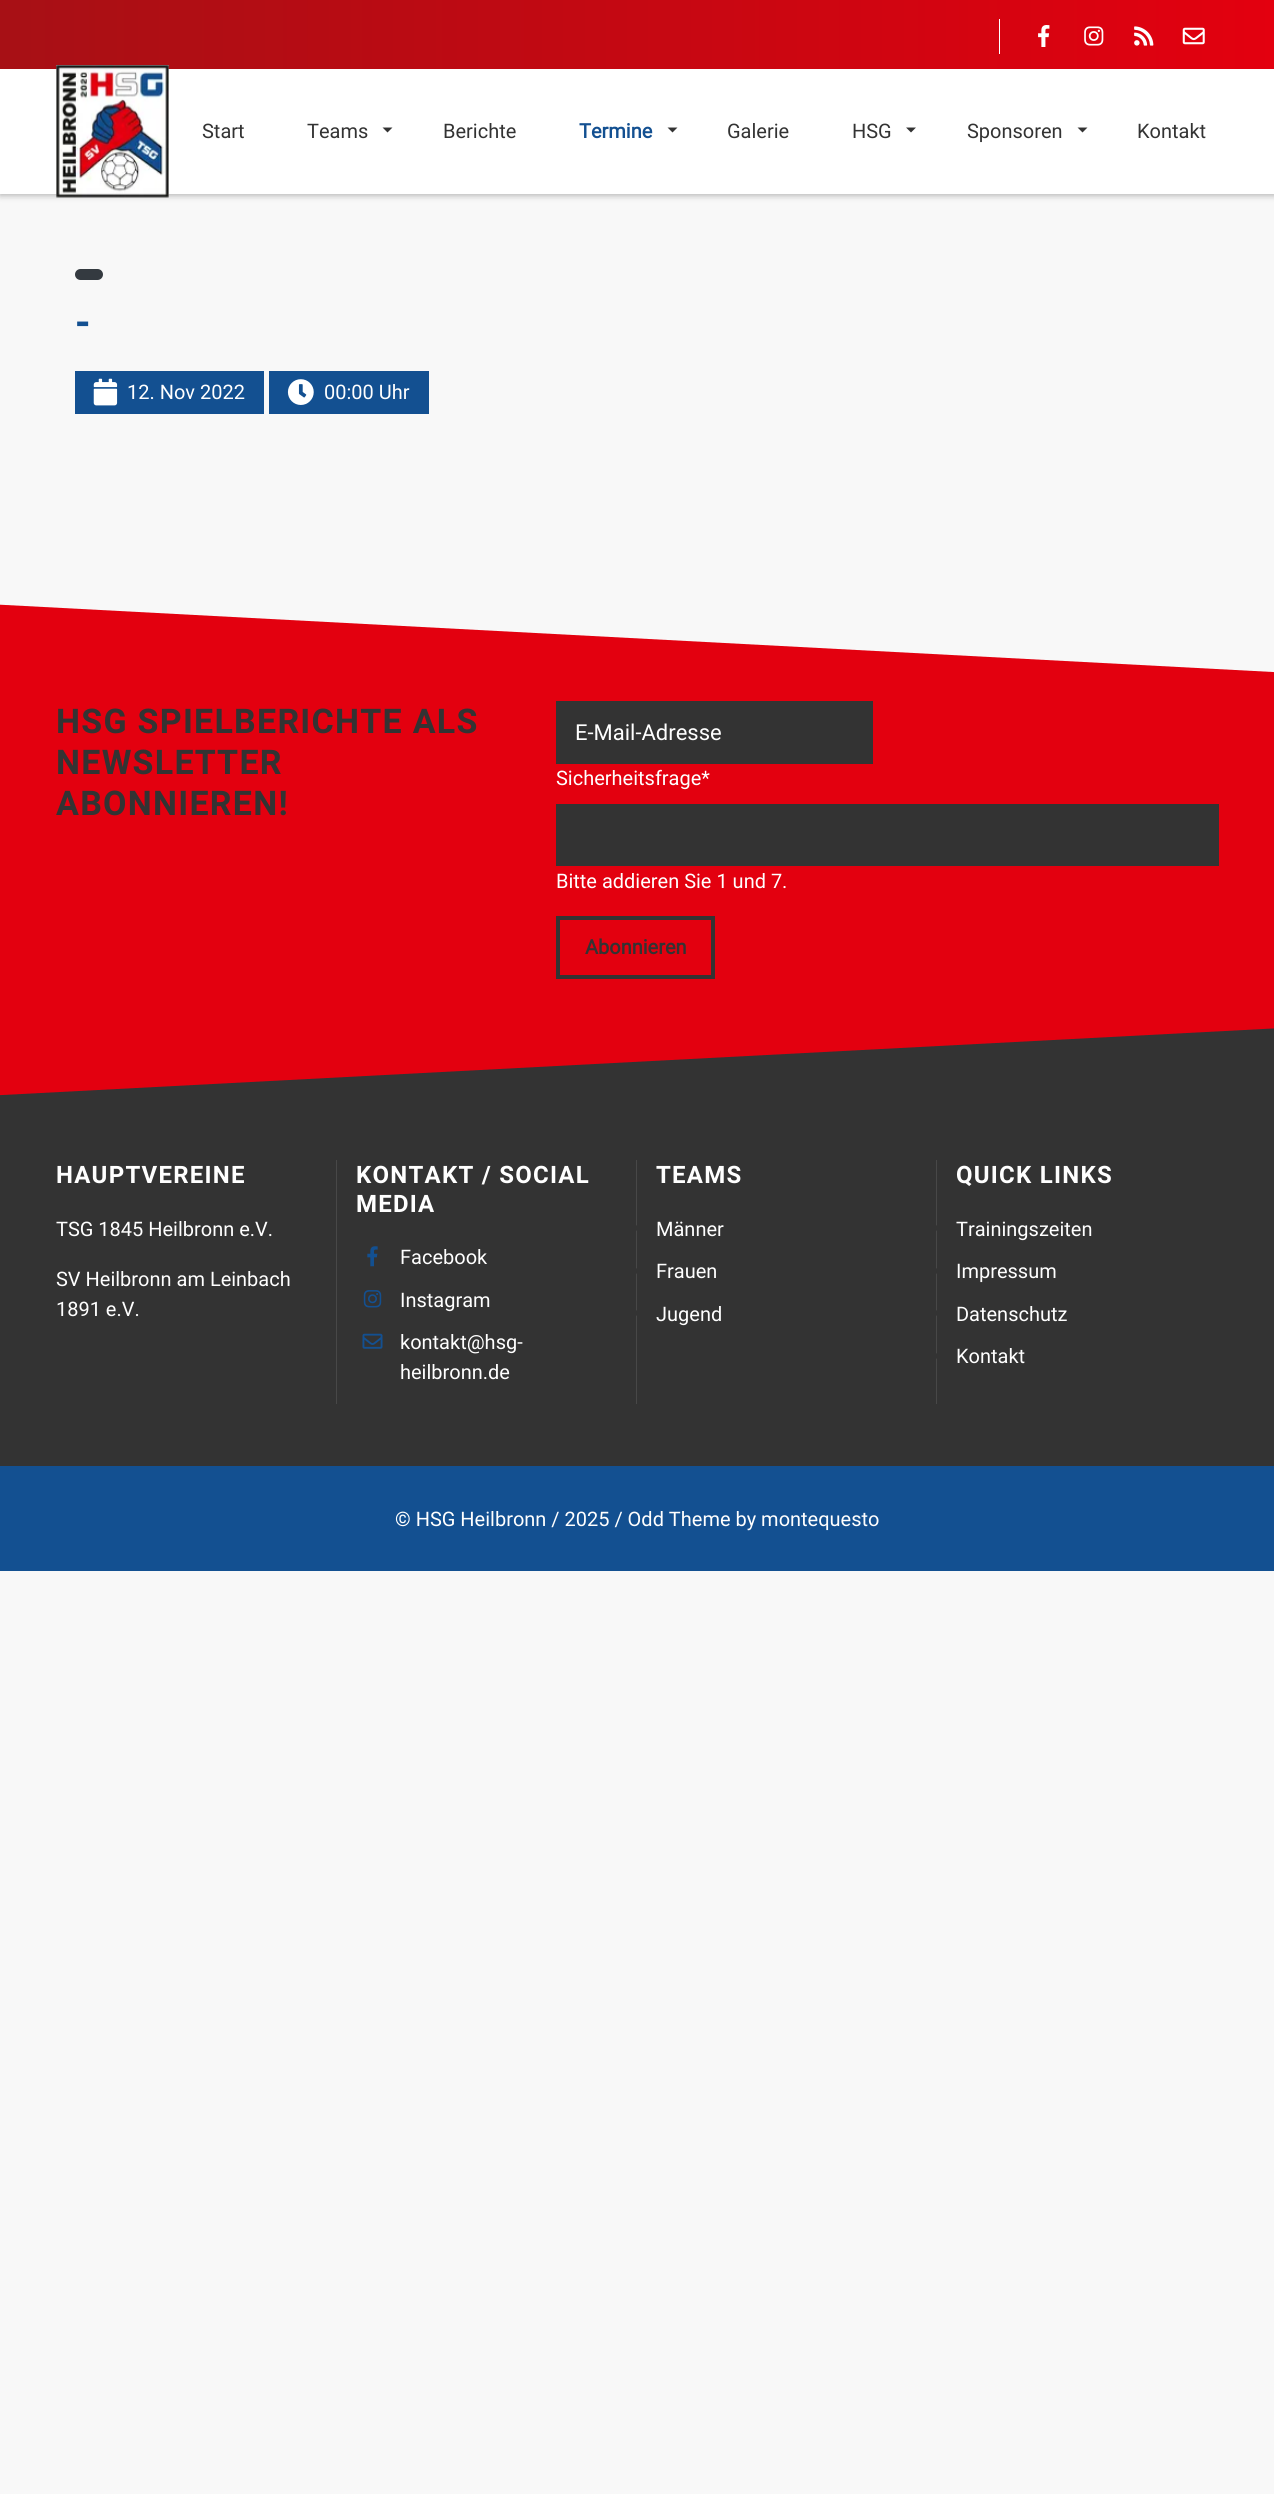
import math
import cairocffi as cairo

surface = cairo.ImageSurface(cairo.FORMAT_RGB24, 1274, 2494)
ctx = cairo.Context(surface)
options = cairo.FontOptions()
options.set_hint_metrics(cairo.HINT_METRICS_OFF)
options.set_hint_style(cairo.HINT_STYLE_NONE)
ctx.set_font_options(options)
ctx.set_miter_limit(4)


def rgb(r, g, b):
    ctx.set_source_rgb(r / 255, g / 255, b / 255)


def face(family, size, italic, bold):
    ctx.select_font_face(family, cairo.FONT_SLANT_ITALIC if italic else cairo.FONT_SLANT_NORMAL, cairo.FONT_WEIGHT_BOLD if bold else cairo.FONT_WEIGHT_NORMAL)
    ctx.set_font_size(size)


def label(x, y, s):
    ctx.move_to(x, y)
    ctx.show_text(s)


def tracked(x, y, s, letter, word):
    ctx.move_to(x, y)
    for ch in s:
        ctx.show_text(ch)
        ctx.rel_move_to(letter + word * (ch == ' '), 0)


def rect(x, y, w, h):
    ctx.rectangle(x, y, w, h)
    ctx.fill()


def rrect(x, y, w, h, r):
    ctx.new_sub_path()
    for i, (u, v) in enumerate([(x + w - r, y + h - r), (x + r, y + h - r), (x + r, y + r), (x + w - r, y + r)]):
        ctx.arc(u, v, r, i * math.pi / 2, (i + 1) * math.pi / 2)
    ctx.close_path()


def soft_shadow(x, y, w, h, r, blur, alpha):
    ctx.push_group_with_content(cairo.CONTENT_ALPHA)
    ctx.set_operator(cairo.OPERATOR_SOURCE)
    for i in range(15, -16, -2):
        e = blur * i / 6
        if min(w, h) + 2 * e > 0:
            ctx.set_source_rgba(0, 0, 0, alpha * math.erfc((i - 1) / 8.5) / 2)
            rrect(x - e, y - e, w + 2 * e, h + 2 * e, max(0, min(r + e + blur * .6, min(w, h) / 2 + e)))
            ctx.fill()
    ctx.mask(ctx.pop_group())


def image(path, x, y, w, h):
    ctx.save()
    ctx.set_source_surface(cairo.ImageSurface.create_from_png(path), x, y)
    ctx.rectangle(x, y, w, h)
    ctx.fill()
    ctx.restore()


rgb(248, 248, 248)
ctx.paint()
rgb(0, 0, 0)
soft_shadow(0, 3, 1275, 193, 0, 3, 0.25)
gradient = cairo.LinearGradient(0, 34, 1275, 34)
gradient.add_color_stop_rgba(0, 0.655, 0.063, 0.082, 1)
gradient.add_color_stop_rgba(1, 0.89, 0, 0.059, 1)
ctx.set_source(gradient)
rect(0, 0, 1274, 69)
rgb(255, 255, 255)
rect(999, 19, 1, 35)
image('image0.png', 1038, 25, 12, 22)
image('image1.png', 1084, 26, 20, 20)
image('image2.png', 1134, 26, 20, 20)
image('image3.png', 1182, 27, 23, 18)
rect(0, 69, 1274, 125)
image('image4.png', 56, 65, 113, 133)
face('Roboto', 20, 0, 0)
rgb(51, 51, 51)
label(202, 138, 'Start')
label(307, 138, 'Teams')
ctx.new_path()
ctx.move_to(382.5, 127.5)
ctx.line_to(392.5, 127.5)
ctx.line_to(387.5, 132.5)
ctx.close_path()
ctx.fill()
label(443, 138, 'Berichte')
face('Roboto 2', 20, 0, 1)
rgb(19, 80, 145)
label(579, 138, 'Termine')
rgb(51, 51, 51)
ctx.new_path()
ctx.move_to(667.5, 127.5)
ctx.line_to(677.5, 127.5)
ctx.line_to(672.5, 132.5)
ctx.close_path()
ctx.fill()
face('Roboto', 20, 0, 0)
label(727, 138, 'Galerie')
label(852, 138, 'HSG')
ctx.new_path()
ctx.move_to(906, 127.5)
ctx.line_to(916, 127.5)
ctx.line_to(911, 132.5)
ctx.close_path()
ctx.fill()
label(967, 138, 'Sponsoren')
ctx.new_path()
ctx.move_to(1077.5, 127.5)
ctx.line_to(1087.5, 127.5)
ctx.line_to(1082.5, 132.5)
ctx.close_path()
ctx.fill()
label(1137, 138, 'Kontakt')
rgb(52, 58, 64)
rrect(75, 269, 28, 11, 5.5)
ctx.fill()
face('Roboto', 40, 0, 1)
rgb(19, 80, 145)
tracked(75, 336, '-', 1.25, 0)
rect(75, 371, 189, 43)
image('image5.png', 93, 378, 25, 28)
face('Roboto', 20, 0, 0)
rgb(255, 255, 255)
label(127, 399, '12. Nov 2022')
rgb(19, 80, 145)
rect(269, 371, 160, 43)
image('image6.png', 287, 379, 27, 26)
rgb(255, 255, 255)
label(324, 399, '00:00 Uhr')
rgb(227, 0, 15)
rect(0, 604, 1274, 369)
ctx.save()
ctx.rectangle(0, 489, 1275, 577)
ctx.clip()
rgb(248, 248, 248)
ctx.new_path()
ctx.move_to(-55, 314)
ctx.line_to(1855, 414)
ctx.line_to(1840, 702)
ctx.line_to(-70, 601)
ctx.close_path()
ctx.fill()
ctx.restore()
face('Roboto', 34, 0, 1)
rgb(51, 51, 51)
tracked(56, 733, 'HSG SPIELBERICHTE ALS', 1.25, 0)
tracked(56, 774, 'NEWSLETTER', 1.25, 0)
tracked(56, 815, 'ABONNIEREN!', 1.25, 0)
rect(556, 701, 317, 63)
face('Roboto', 22, 0, 0)
rgb(255, 255, 255)
label(575, 740, 'E-Mail-Adresse')
face('Roboto', 20, 0, 0)
label(556, 785, 'Sicherheitsfrage*')
rgb(51, 51, 51)
rect(556, 804, 663, 62)
rgb(255, 255, 255)
label(556, 888, 'Bitte addieren Sie 1 und 7.')
rgb(51, 51, 51)
rect(0, 1028, 1274, 438)
ctx.save()
ctx.rectangle(0, 973, 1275, 493)
ctx.clip()
rgb(227, 0, 15)
ctx.new_path()
ctx.move_to(-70, 811)
ctx.line_to(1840, 711)
ctx.line_to(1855, 998)
ctx.line_to(-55, 1098)
ctx.close_path()
ctx.fill()
ctx.restore()
ctx.rectangle(558, 918, 155, 59)
ctx.set_line_width(4)
ctx.stroke()
face('Roboto 2', 20, 0, 1)
label(585, 954, 'Abonnieren')
rgb(72, 72, 72)
rect(336, 1160, 1, 244)
face('Roboto', 24, 0, 1)
rgb(255, 255, 255)
tracked(56, 1183, 'HAUPTVEREINE', 1.25, 0)
face('Roboto', 20, 0, 0)
label(56, 1236, 'TSG 1845 Heilbronn e.V.')
label(56, 1286, 'SV Heilbronn am Leinbach')
label(56, 1316, '1891 e.V.')
rgb(72, 72, 72)
rect(636, 1160, 1, 244)
face('Roboto', 24, 0, 1)
rgb(255, 255, 255)
tracked(356, 1183, 'KONTAKT / SOCIAL', 1.25, 0)
tracked(356, 1212, 'MEDIA', 1.25, 0)
image('image7.png', 367, 1246, 11, 21)
face('Roboto', 20, 0, 0)
label(400, 1264, 'Facebook')
image('image8.png', 363, 1290, 19, 18)
label(400, 1307, 'Instagram')
image('image9.png', 362, 1333, 21, 16)
label(400, 1349, 'kontakt@hsg-')
label(400, 1379, 'heilbronn.de')
rgb(72, 72, 72)
rect(936, 1160, 1, 244)
face('Roboto', 24, 0, 1)
rgb(255, 255, 255)
tracked(656, 1183, 'TEAMS', 1.25, 0)
rgb(51, 51, 51)
ctx.new_path()
ctx.arc(638, 1228, 3, 0, 2 * math.pi)
ctx.fill()
face('Roboto', 20, 0, 0)
rgb(255, 255, 255)
label(656, 1236, 'Männer')
rgb(51, 51, 51)
ctx.new_path()
ctx.arc(638, 1271, 3, 0, 2 * math.pi)
ctx.fill()
rgb(255, 255, 255)
label(656, 1278, 'Frauen')
rgb(51, 51, 51)
ctx.new_path()
ctx.arc(638, 1313, 3, 0, 2 * math.pi)
ctx.fill()
rgb(255, 255, 255)
label(656, 1321, 'Jugend')
face('Roboto', 24, 0, 1)
tracked(956, 1183, 'QUICK LINKS', 1.25, 0)
rgb(51, 51, 51)
ctx.new_path()
ctx.arc(938, 1228, 3, 0, 2 * math.pi)
ctx.fill()
face('Roboto', 20, 0, 0)
rgb(255, 255, 255)
label(956, 1236, 'Trainingszeiten')
rgb(51, 51, 51)
ctx.new_path()
ctx.arc(938, 1271, 3, 0, 2 * math.pi)
ctx.fill()
rgb(255, 255, 255)
label(956, 1278, 'Impressum')
rgb(51, 51, 51)
ctx.new_path()
ctx.arc(938, 1313, 3, 0, 2 * math.pi)
ctx.fill()
rgb(255, 255, 255)
label(956, 1321, 'Datenschutz')
rgb(51, 51, 51)
ctx.new_path()
ctx.arc(938, 1356, 3, 0, 2 * math.pi)
ctx.fill()
rgb(255, 255, 255)
label(956, 1363, 'Kontakt')
rgb(19, 80, 145)
rect(0, 1466, 1274, 105)
rgb(255, 255, 255)
label(395, 1526, '© HSG Heilbronn / 2025 / Odd Theme by montequesto')
surface.write_to_png('render.png')
